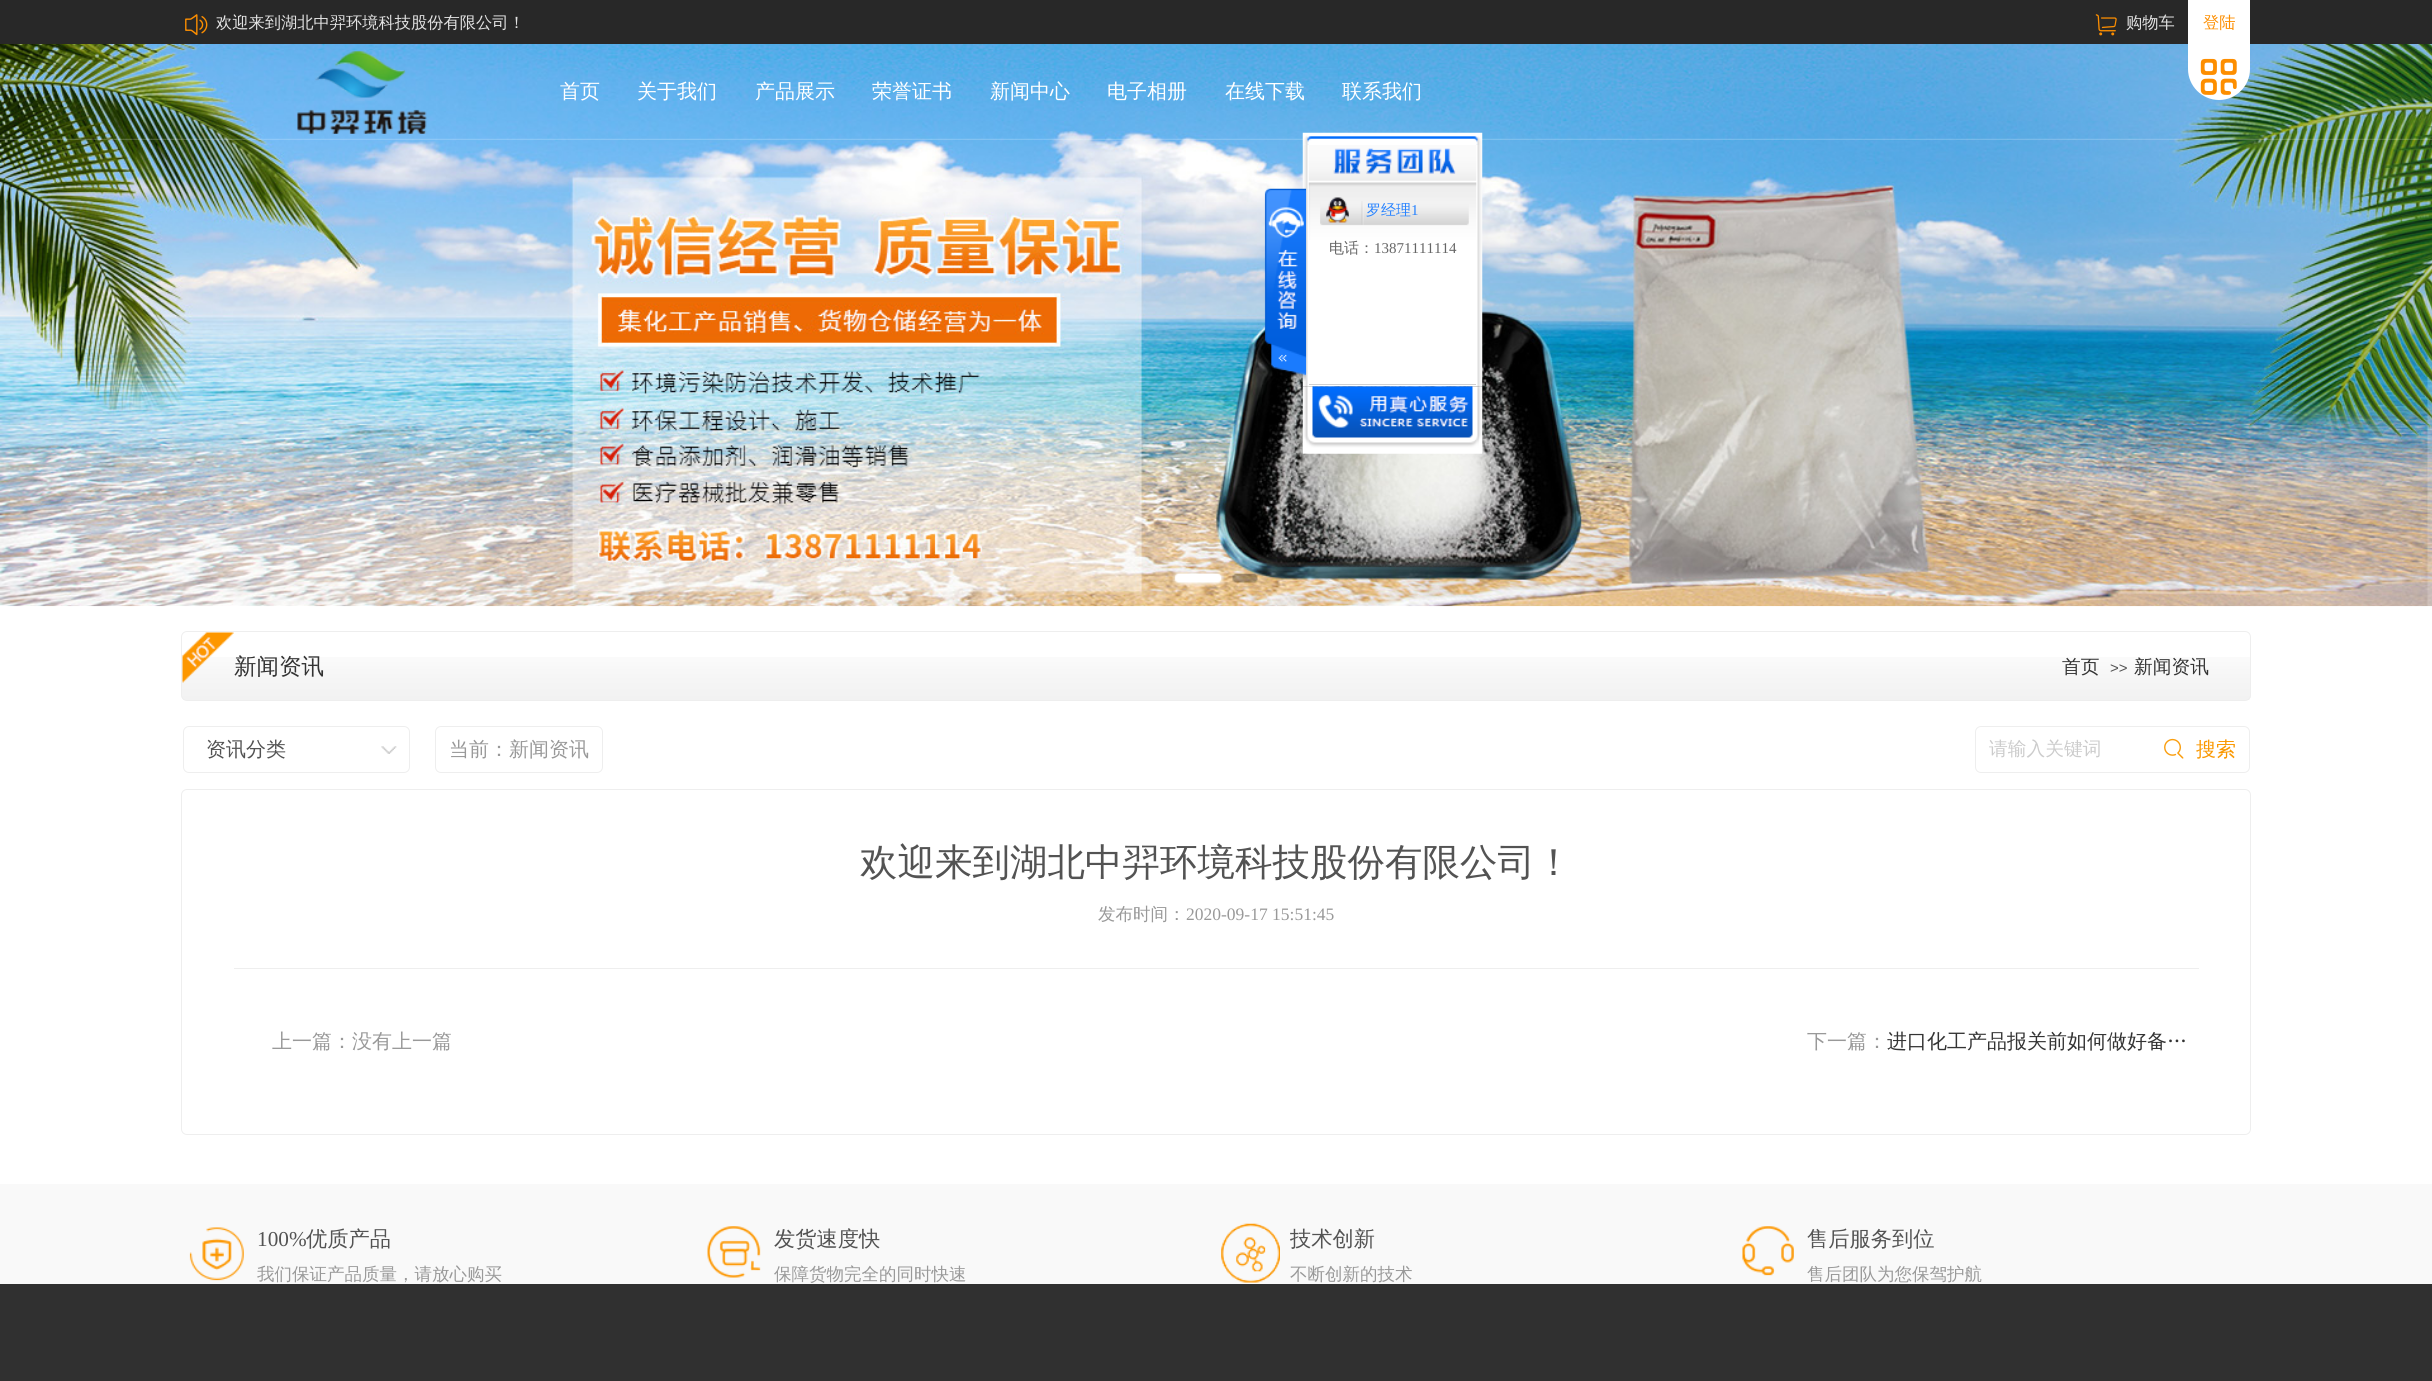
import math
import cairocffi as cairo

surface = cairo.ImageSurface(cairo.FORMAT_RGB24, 2432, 1381)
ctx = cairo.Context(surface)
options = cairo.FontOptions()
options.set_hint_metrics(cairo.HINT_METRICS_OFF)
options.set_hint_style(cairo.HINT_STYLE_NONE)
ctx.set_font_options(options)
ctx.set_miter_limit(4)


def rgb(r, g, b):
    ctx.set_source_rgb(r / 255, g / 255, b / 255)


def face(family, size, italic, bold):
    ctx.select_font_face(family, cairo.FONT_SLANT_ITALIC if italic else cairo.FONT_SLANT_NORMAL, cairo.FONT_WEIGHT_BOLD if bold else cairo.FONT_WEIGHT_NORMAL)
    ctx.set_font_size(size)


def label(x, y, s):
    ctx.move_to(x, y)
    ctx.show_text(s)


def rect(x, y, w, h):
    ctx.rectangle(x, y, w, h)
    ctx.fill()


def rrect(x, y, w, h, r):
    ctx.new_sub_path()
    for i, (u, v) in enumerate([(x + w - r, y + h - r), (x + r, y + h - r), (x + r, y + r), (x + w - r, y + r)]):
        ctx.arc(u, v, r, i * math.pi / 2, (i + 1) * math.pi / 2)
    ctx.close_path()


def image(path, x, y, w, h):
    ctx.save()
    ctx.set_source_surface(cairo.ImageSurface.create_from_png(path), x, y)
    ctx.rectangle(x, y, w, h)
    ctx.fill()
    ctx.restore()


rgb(255, 255, 255)
ctx.paint()
rgb(40, 40, 40)
rect(0, 0, 2432, 44)
image('image0.png', 185, 14, 23, 22)
face('WenQuanYi Zen Hei Medium', 16.25, 0, 0)
rgb(227, 227, 227)
label(216, 28, '欢迎来到湖北中羿环境科技股份有限公司！')
image('image1.png', 2095, 14, 22, 22)
label(2126, 28, '购物车')
image('image3.png', 0, 44, 2432, 563)
rgb(255, 255, 255)
ctx.new_path()
ctx.move_to(2188, 0)
ctx.line_to(2250, 0)
ctx.line_to(2250, 69)
ctx.curve_to(2250, 86, 2236, 100, 2219, 100)
ctx.curve_to(2202, 100, 2188, 86, 2188, 69)
ctx.close_path()
ctx.fill()
rgb(253, 142, 0)
label(2203, 28, '登陆')
image('image2.png', 2200, 58, 37, 37)
image('image4.png', 1170, 569, 56, 18)
image('image5.png', 1232, 573, 26, 10)
image('image6.png', 0, 138, 2432, 2)
image('image7.png', 297, 51, 130, 83)
face('WenQuanYi Zen Hei Medium', 20, 0, 0)
rgb(255, 255, 255)
label(560, 98, '首页')
label(637, 98, '关于我们')
label(755, 98, '产品展示')
label(872, 98, '荣誉证书')
label(990, 98, '新闻中心')
label(1107, 98, '电子相册')
label(1225, 98, '在线下载')
label(1342, 98, '联系我们')
image('image8.png', 181, 657, 2070, 43)
rrect(181.5, 631.5, 2069, 69, 5.5)
rgb(238, 238, 238)
ctx.set_line_width(1)
ctx.stroke()
image('image9.png', 182, 632, 52, 51)
face('WenQuanYi Zen Hei Medium', 22.5, 0, 0)
rgb(51, 51, 51)
label(234, 674, '新闻资讯')
face('WenQuanYi Zen Hei Medium', 18.75, 0, 0)
label(2062, 673, '首页')
face('Liberation Sans', 15, 0, 0)
rgb(83, 83, 83)
label(2110, 673, '>>')
face('WenQuanYi Zen Hei Medium', 18.75, 0, 0)
rgb(51, 51, 51)
label(2134, 673, '新闻资讯')
rrect(183.5, 726.5, 226, 46, 5.5)
rgb(238, 238, 238)
ctx.stroke()
image('image10.png', 381, 746, 16, 8)
face('WenQuanYi Zen Hei Medium', 20, 0, 0)
rgb(83, 83, 83)
label(206, 756, '资讯分类')
rrect(435.5, 726.5, 167, 46, 5.5)
rgb(238, 238, 238)
ctx.stroke()
rgb(153, 153, 153)
label(449, 756, '当前：新闻资讯')
rrect(1975.5, 726.5, 274, 46, 5.5)
rgb(238, 238, 238)
ctx.stroke()
face('WenQuanYi Zen Hei Medium', 18.75, 0, 0)
rgb(204, 204, 204)
label(1989, 755, '请输入关键词')
image('image11.png', 2164, 738, 20, 21)
face('WenQuanYi Zen Hei Medium', 20, 0, 0)
rgb(250, 152, 1)
label(2196, 756, '搜索')
rrect(181.5, 789.5, 2069, 345, 5.5)
rgb(238, 238, 238)
ctx.stroke()
face('WenQuanYi Zen Hei Medium', 37.5, 0, 0)
rgb(83, 83, 83)
label(860, 875, '欢迎来到湖北中羿环境科技股份有限公司！')
face('WenQuanYi Zen Hei Medium', 17.5, 0, 0)
rgb(153, 153, 153)
label(1098, 920, '发布时间：')
face('Liberation Serif', 17.5, 0, 0)
label(1186, 920, '2020-09-17 15:51:45')
rgb(238, 238, 238)
rect(234, 968, 1965, 1)
face('WenQuanYi Zen Hei Medium', 20, 0, 0)
rgb(153, 153, 153)
label(272, 1048, '上一篇：没有上一篇')
label(1807, 1048, '下一篇：')
rgb(51, 51, 51)
label(1887, 1048, '进口化工产品报关前如何做好备…')
rgb(249, 249, 249)
rect(0, 1184, 2432, 100)
image('image12.png', 189, 1227, 55, 54)
face('Liberation Serif', 21.25, 0, 0)
rgb(83, 83, 83)
label(257, 1246, '100%')
face('WenQuanYi Zen Hei Medium', 21.25, 0, 0)
label(306, 1246, '优质产品')
face('WenQuanYi Zen Hei Medium', 17.5, 0, 0)
rgb(153, 153, 153)
label(257, 1280, '我们保证产品质量，请放心购买')
image('image13.png', 707, 1226, 54, 52)
face('WenQuanYi Zen Hei Medium', 21.25, 0, 0)
rgb(83, 83, 83)
label(774, 1246, '发货速度快')
face('WenQuanYi Zen Hei Medium', 17.5, 0, 0)
rgb(153, 153, 153)
label(774, 1280, '保障货物完全的同时快速')
image('image14.png', 1221, 1223, 59, 60)
face('WenQuanYi Zen Hei Medium', 21.25, 0, 0)
rgb(83, 83, 83)
label(1290, 1246, '技术创新')
face('WenQuanYi Zen Hei Medium', 17.5, 0, 0)
rgb(153, 153, 153)
label(1290, 1280, '不断创新的技术')
image('image15.png', 1742, 1226, 52, 50)
face('WenQuanYi Zen Hei Medium', 21.25, 0, 0)
rgb(83, 83, 83)
label(1807, 1246, '售后服务到位')
face('WenQuanYi Zen Hei Medium', 17.5, 0, 0)
rgb(153, 153, 153)
label(1807, 1280, '售后团队为您保驾护航')
rgb(48, 48, 48)
rect(0, 1284, 2432, 97)
image('image23.png', 1302, 386, 181, 68)
image('image18.png', 1302, 145, 181, 242)
image('image16.png', 1264, 188, 43, 193)
image('image17.png', 1302, 132, 181, 13)
image('image19.png', 1308, 145, 169, 36)
image('image20.png', 1308, 182, 169, 58)
rgb(208, 208, 208)
rect(1309, 384, 167, 1)
image('image22.png', 1320, 201, 149, 25)
image('image21.png', 1326, 197, 23, 26)
face('WenQuanYi Zen Hei Medium', 15, 0, 0)
rgb(38, 130, 255)
label(1366, 215, '罗经理')
face('Liberation Serif', 15, 0, 0)
label(1411, 215, '1')
face('WenQuanYi Zen Hei Medium', 15, 0, 0)
rgb(102, 102, 102)
label(1329, 253, '电话：')
face('Liberation Serif', 15, 0, 0)
label(1374, 253, '13871111114')
surface.write_to_png('render.png')
